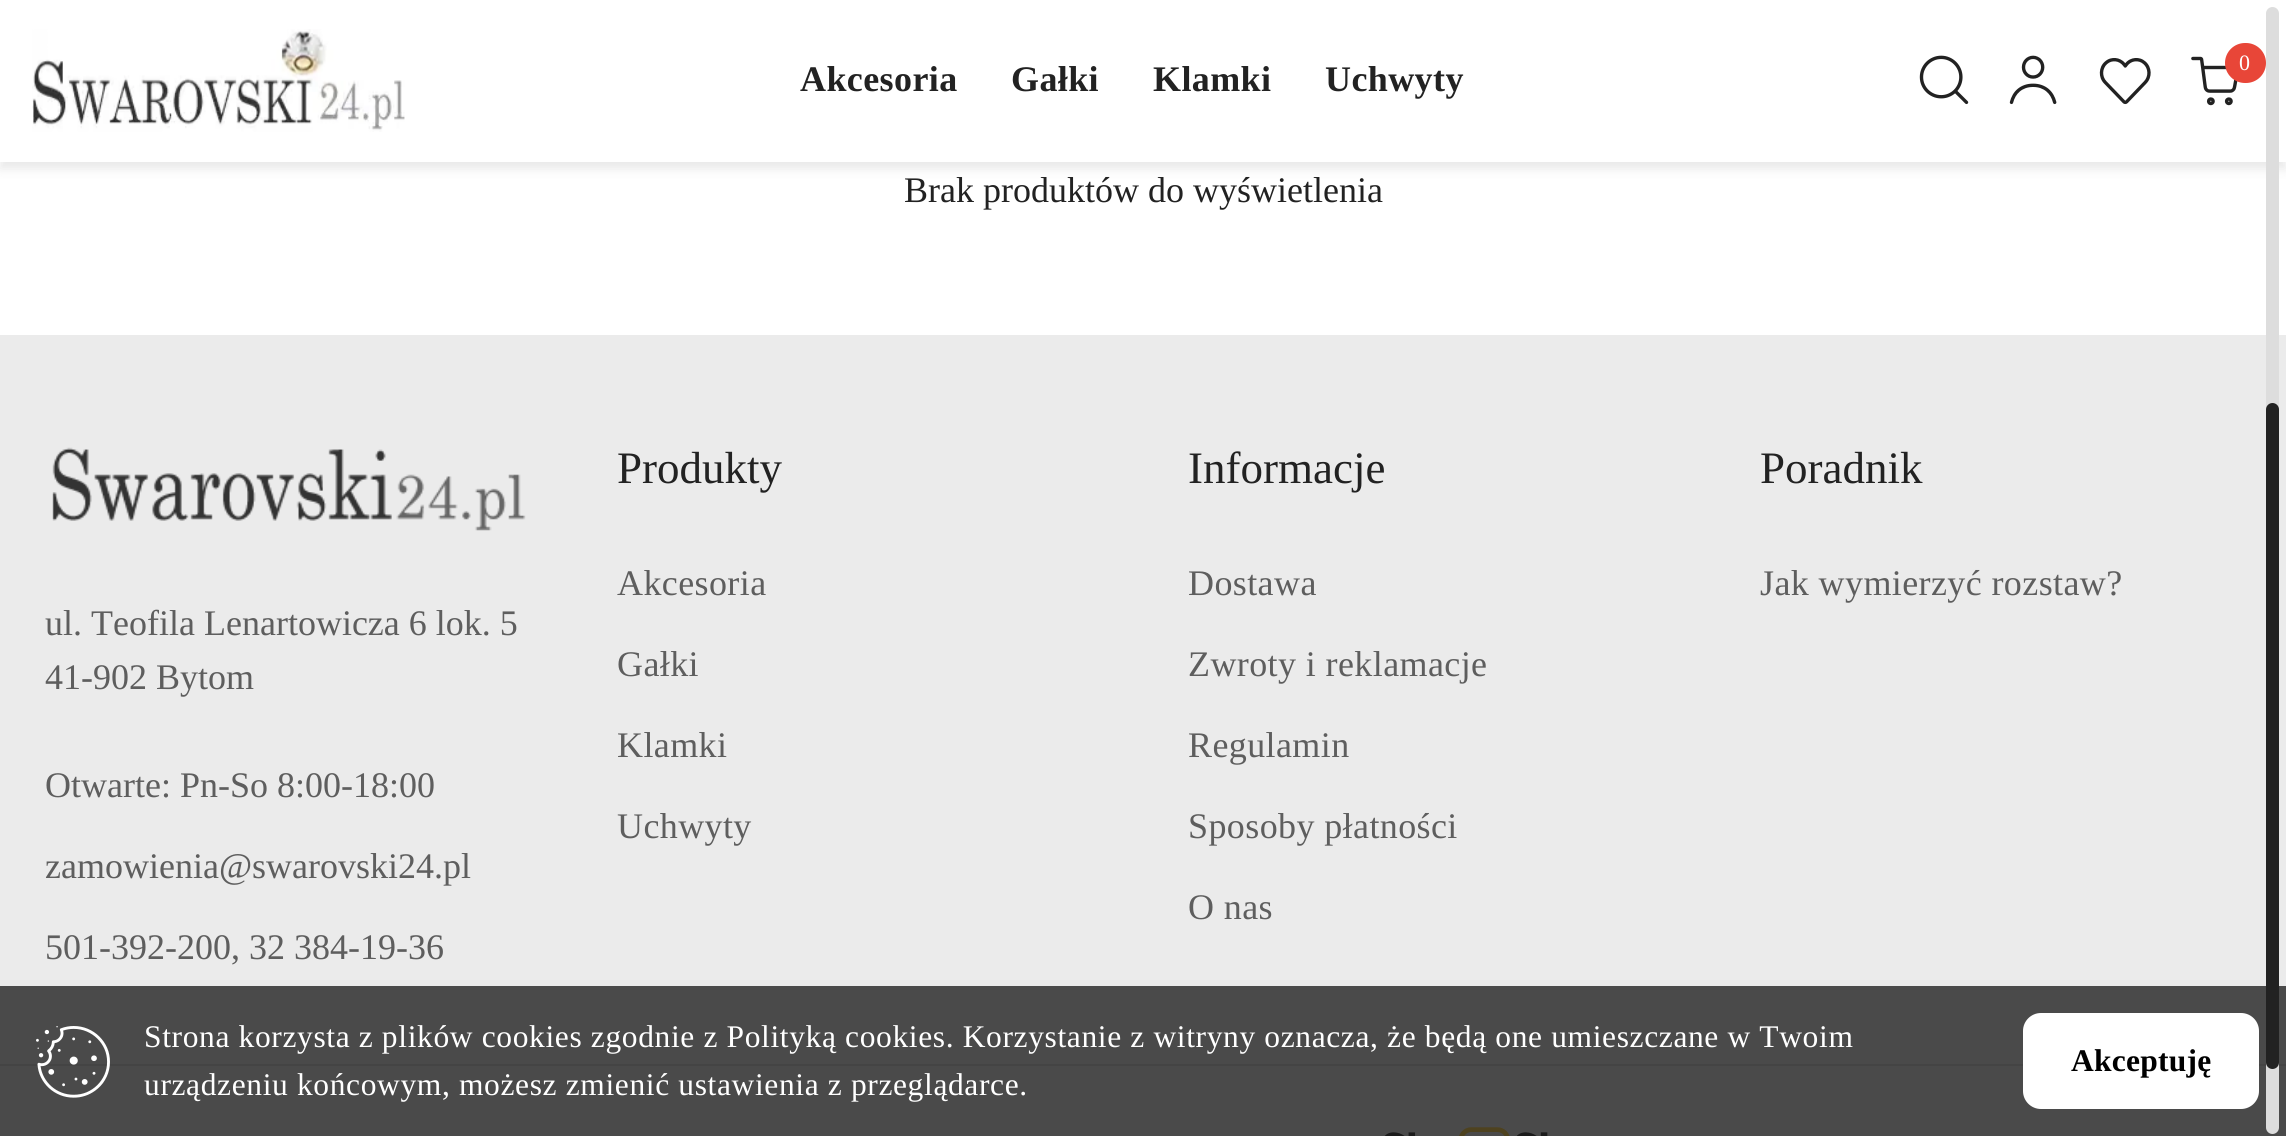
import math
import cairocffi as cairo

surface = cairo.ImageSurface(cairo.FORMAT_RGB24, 2286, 1136)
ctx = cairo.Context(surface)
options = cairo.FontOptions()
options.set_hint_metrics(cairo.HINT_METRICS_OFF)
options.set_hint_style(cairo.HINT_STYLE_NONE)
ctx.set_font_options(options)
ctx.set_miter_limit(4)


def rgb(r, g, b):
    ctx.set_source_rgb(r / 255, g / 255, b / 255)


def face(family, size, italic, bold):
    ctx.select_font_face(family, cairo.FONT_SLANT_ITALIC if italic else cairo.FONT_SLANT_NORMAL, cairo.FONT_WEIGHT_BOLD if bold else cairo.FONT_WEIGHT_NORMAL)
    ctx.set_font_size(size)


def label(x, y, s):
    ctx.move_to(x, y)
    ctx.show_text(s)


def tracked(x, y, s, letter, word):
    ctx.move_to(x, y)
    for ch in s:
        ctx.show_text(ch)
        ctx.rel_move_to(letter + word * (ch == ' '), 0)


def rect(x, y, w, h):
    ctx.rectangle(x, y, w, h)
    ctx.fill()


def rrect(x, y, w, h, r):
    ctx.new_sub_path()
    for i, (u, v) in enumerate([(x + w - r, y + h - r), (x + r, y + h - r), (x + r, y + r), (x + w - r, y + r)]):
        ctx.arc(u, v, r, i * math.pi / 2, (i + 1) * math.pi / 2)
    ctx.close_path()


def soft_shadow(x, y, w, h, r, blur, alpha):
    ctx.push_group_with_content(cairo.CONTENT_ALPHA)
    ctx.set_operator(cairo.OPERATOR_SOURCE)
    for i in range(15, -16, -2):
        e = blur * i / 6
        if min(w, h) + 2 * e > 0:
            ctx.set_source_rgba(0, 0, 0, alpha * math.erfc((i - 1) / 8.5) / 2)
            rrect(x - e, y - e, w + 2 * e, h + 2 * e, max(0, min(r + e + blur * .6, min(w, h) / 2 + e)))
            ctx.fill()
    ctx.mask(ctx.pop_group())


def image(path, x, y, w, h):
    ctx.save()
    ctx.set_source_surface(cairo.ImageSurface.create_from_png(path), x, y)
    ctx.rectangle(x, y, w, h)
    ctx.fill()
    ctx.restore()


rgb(255, 255, 255)
ctx.paint()
rgb(0, 0, 0)
soft_shadow(0, 7, 2286, 162, 0, 5.5, 0.09)
rgb(255, 255, 255)
rect(0, 0, 2286, 162)
image('image0.png', 32, 29, 373, 103)
image('image1.png', 1919, 55, 50, 50)
image('image2.png', 2009, 55, 48, 50)
image('image3.png', 2099, 58, 52, 47)
image('image4.png', 2191, 56, 47, 50)
rgb(232, 70, 56)
rrect(2225, 43, 41, 40, 20)
ctx.fill()
face('Liberation Serif', 22, 0, 0)
rgb(255, 255, 255)
label(2239, 70, '0')
face('Liberation Serif', 36, 0, 1)
rgb(34, 34, 34)
tracked(800, 91, 'Akcesoria', 0.4, 0)
tracked(1011, 91, 'Gałki', 0.4, 0)
tracked(1153, 91, 'Klamki', 0.4, 0)
tracked(1325, 91, 'Uchwyty', 0.4, 0)
face('Liberation Serif', 36, 0, 0)
label(904, 202, 'Brak produktów do wyświetlenia')
rgb(235, 235, 235)
rect(0, 335, 2286, 651)
rgb(74, 74, 74)
rect(0, 986, 2286, 150)
face('Liberation Serif', 45, 0, 0)
rgb(34, 34, 34)
label(617, 483, 'Produkty')
face('Liberation Serif', 36, 0, 0)
rgb(94, 94, 94)
tracked(617, 595, 'Akcesoria', 0.4, 0)
tracked(617, 676, 'Gałki', 0.4, 0)
tracked(617, 757, 'Klamki', 0.4, 0)
tracked(617, 838, 'Uchwyty', 0.4, 0)
face('Liberation Serif', 45, 0, 0)
rgb(34, 34, 34)
label(1188, 483, 'Informacje')
face('Liberation Serif', 36, 0, 0)
rgb(94, 94, 94)
tracked(1188, 595, 'Dostawa', 0.4, 0)
tracked(1188, 676, 'Zwroty i reklamacje', 0.4, 0)
tracked(1188, 757, 'Regulamin', 0.4, 0)
tracked(1188, 838, 'Sposoby płatności', 0.4, 0)
tracked(1188, 919, 'O nas', 0.4, 0)
face('Liberation Serif', 45, 0, 0)
rgb(34, 34, 34)
label(1760, 483, 'Poradnik')
face('Liberation Serif', 36, 0, 0)
rgb(94, 94, 94)
tracked(1760, 595, 'Jak wymierzyć rozstaw?', 0.4, 0)
image('image5.png', 52, 447, 474, 84)
label(45, 635, 'ul. Teofila Lenartowicza 6 lok. 5')
label(45, 689, '41-902 Bytom')
label(45, 797, 'Otwarte: Pn-So 8:00-18:00')
label(45, 878, 'zamowienia@swarovski24.pl')
label(45, 959, '501-392-200, 32 384-19-36')
rgb(68, 68, 68)
rect(0, 1064, 2286, 2)
image('image6.png', 1384, 1127, 164, 9)
image('image7.png', 36, 1026, 74, 72)
face('Liberation Serif', 31.5, 0, 0)
rgb(255, 255, 255)
tracked(144, 1047, 'Strona korzysta z plików cookies zgodnie z Polityką cookies. Korzystanie z witryny oznacza, że będą one umieszczane w Twoim', 0.63, 0)
tracked(144, 1095, 'urządzeniu końcowym, możesz zmienić ustawienia z przeglądarce.', 0.63, 0)
rrect(2024, 1014, 234, 94, 17)
ctx.fill_preserve()
ctx.stroke()
face('Liberation Serif', 31.5, 0, 1)
rgb(0, 0, 0)
tracked(2071, 1071, 'Akceptuję', 0.25, 0)
rgb(221, 221, 221)
rrect(2266, 7, 13, 1127, 6.5)
ctx.fill()
rgb(34, 34, 34)
rrect(2266, 403, 13, 666, 6.5)
ctx.fill()
surface.write_to_png('render.png')
